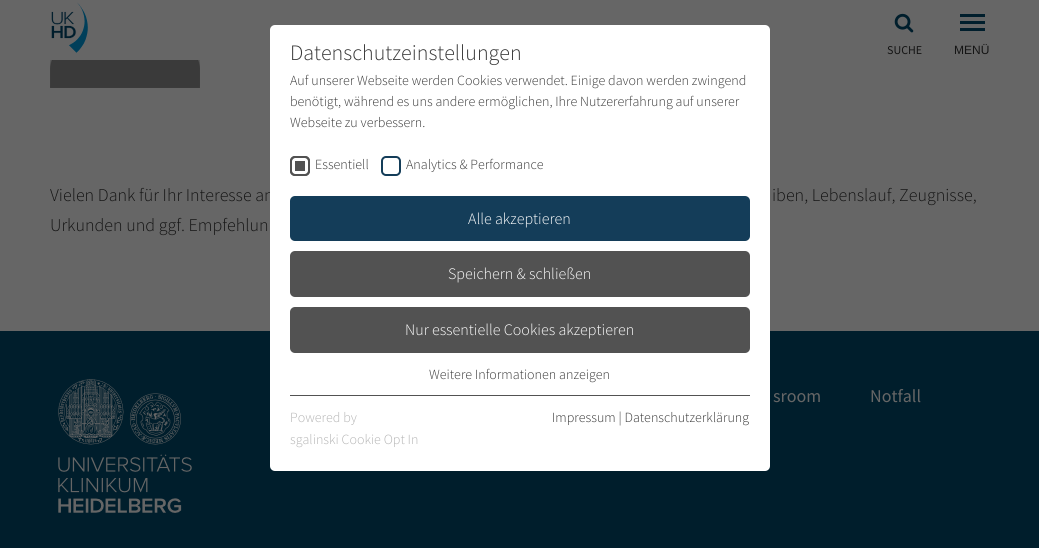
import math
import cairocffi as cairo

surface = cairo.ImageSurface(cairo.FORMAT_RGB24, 1039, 548)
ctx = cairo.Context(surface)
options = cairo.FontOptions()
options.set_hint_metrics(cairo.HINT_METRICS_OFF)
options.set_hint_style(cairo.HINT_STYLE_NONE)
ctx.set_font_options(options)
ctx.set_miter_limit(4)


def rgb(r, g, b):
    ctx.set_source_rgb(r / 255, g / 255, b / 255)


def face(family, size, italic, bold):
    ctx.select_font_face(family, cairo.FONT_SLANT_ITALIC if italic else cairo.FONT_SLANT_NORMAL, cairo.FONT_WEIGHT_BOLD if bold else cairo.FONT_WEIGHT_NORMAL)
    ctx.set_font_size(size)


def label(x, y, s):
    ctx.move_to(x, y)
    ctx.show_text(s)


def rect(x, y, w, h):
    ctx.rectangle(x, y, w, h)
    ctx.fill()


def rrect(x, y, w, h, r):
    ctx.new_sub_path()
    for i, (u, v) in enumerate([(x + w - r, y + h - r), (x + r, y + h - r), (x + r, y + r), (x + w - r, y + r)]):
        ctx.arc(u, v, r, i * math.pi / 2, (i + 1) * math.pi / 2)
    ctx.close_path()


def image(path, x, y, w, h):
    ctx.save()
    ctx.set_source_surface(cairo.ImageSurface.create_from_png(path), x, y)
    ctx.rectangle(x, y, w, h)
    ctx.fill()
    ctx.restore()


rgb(102, 102, 102)
ctx.paint()
image('image0.png', 51, 2, 37, 51)
image('image1.png', 894, 13, 20, 20)
face('Source Sans Pro', 12, 0, 0)
rgb(20, 20, 20)
label(887, 54, 'SUCHE')
rgb(0, 30, 44)
rect(960, 14, 25, 3)
rect(960, 21, 25, 3)
rect(960, 28, 25, 3)
face('Liberation Sans', 12, 0, 0)
rgb(20, 20, 20)
label(954, 54, 'MENÜ')
image('image2.png', 50, 60, 150, 28)
face('Source Sans Pro Light', 18, 0, 0)
label(50, 201, 'Vielen Dank für Ihr Interesse an')
label(772, 201, 'iben, Lebenslauf, Zeugnisse,')
label(50, 231, 'Urkunden und ggf. Empfehlun')
rgb(0, 30, 44)
rect(0, 331, 1039, 217)
image('image3.png', 58, 379, 134, 134)
face('Source Sans Pro', 18, 0, 0)
rgb(102, 102, 102)
label(773, 402, 'sroom')
label(870, 402, 'Notfall')
rgb(255, 255, 255)
rrect(270, 25, 500, 446, 5)
ctx.fill()
face('Source Sans Pro Light', 22, 0, 0)
rgb(55, 55, 55)
label(290, 60, 'Datenschutzeinstellungen')
face('Source Sans Pro Light', 14, 0, 0)
label(290, 85, 'Auf unserer Webseite werden Cookies verwendet. Einige davon werden zwingend')
label(290, 106, 'benötigt, während es uns andere ermöglichen, Ihre Nutzererfahrung auf unserer')
label(290, 127, 'Webseite zu verbessern.')
rgb(82, 82, 82)
rrect(290, 156, 20, 20, 5)
ctx.fill()
rrect(293.5, 159.5, 13, 13, 1.5)
rgb(255, 255, 255)
ctx.set_line_width(3)
ctx.stroke()
rrect(291, 157, 18, 18, 4)
rgb(82, 82, 82)
ctx.set_line_width(2)
ctx.stroke()
rgb(55, 55, 55)
label(315, 169, 'Essentiell')
rrect(382, 157, 18, 18, 4)
rgb(20, 61, 89)
ctx.stroke()
rgb(55, 55, 55)
label(406, 169, 'Analytics & Performance')
rgb(20, 61, 89)
rrect(290, 196, 460, 45, 5)
ctx.fill()
face('Source Sans Pro Light', 16, 0, 0)
rgb(255, 255, 255)
label(468, 224, 'Alle akzeptieren')
rgb(82, 82, 82)
rrect(290, 251, 460, 46, 5)
ctx.fill()
rgb(255, 255, 255)
label(448, 279, 'Speichern & schließen')
rgb(82, 82, 82)
rrect(290, 307, 460, 46, 5)
ctx.fill()
rgb(255, 255, 255)
label(405, 335, 'Nur essentielle Cookies akzeptieren')
face('Source Sans Pro Light', 14, 0, 0)
rgb(55, 55, 55)
label(429, 379, 'Weitere Informationen anzeigen')
rgb(82, 82, 82)
rect(290, 395, 460, 1)
rgb(180, 180, 180)
label(290, 422, 'Powered by')
label(290, 444, 'sgalinski Cookie Opt In')
rgb(55, 55, 55)
label(552, 422, 'Impressum | Datenschutzerklärung')
surface.write_to_png('render.png')
